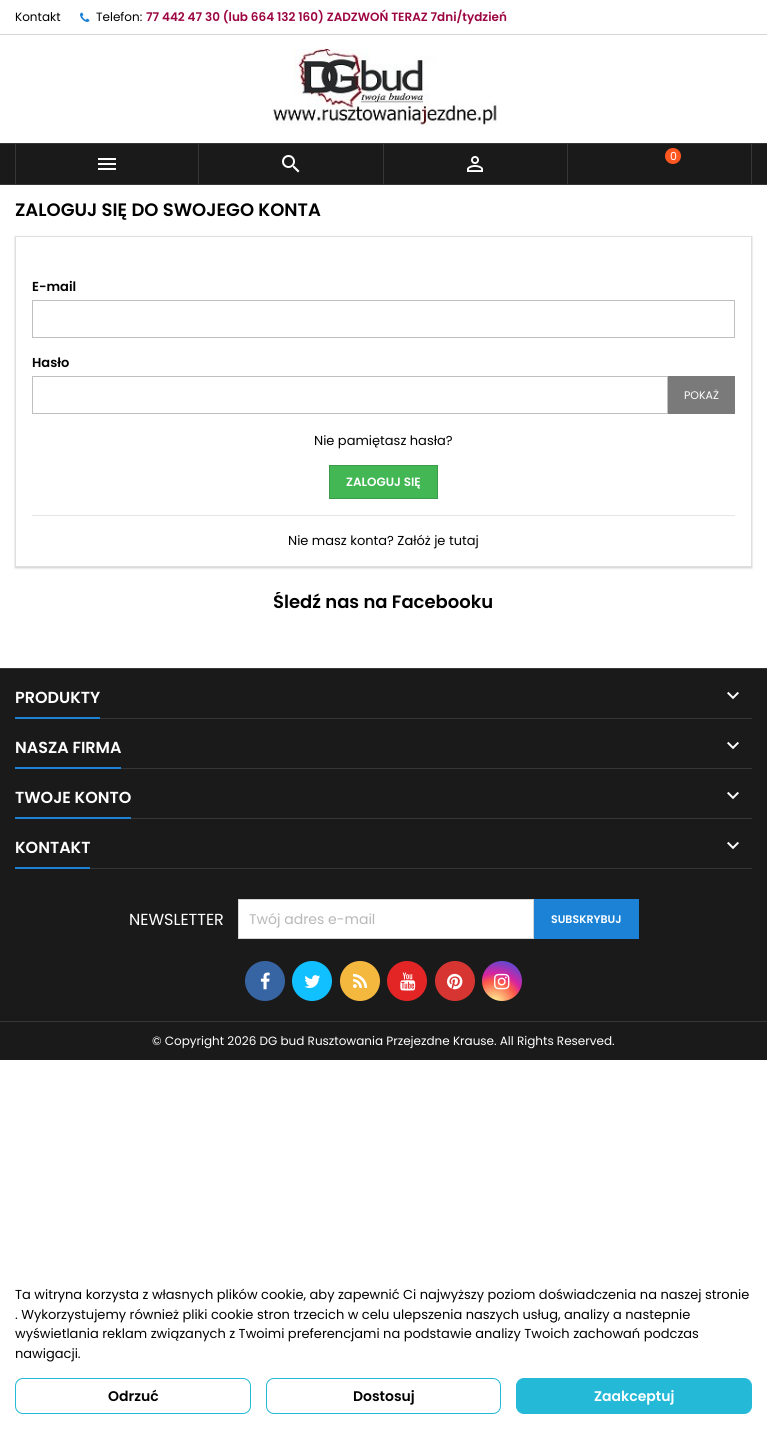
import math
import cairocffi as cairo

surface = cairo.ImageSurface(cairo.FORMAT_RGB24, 767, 1429)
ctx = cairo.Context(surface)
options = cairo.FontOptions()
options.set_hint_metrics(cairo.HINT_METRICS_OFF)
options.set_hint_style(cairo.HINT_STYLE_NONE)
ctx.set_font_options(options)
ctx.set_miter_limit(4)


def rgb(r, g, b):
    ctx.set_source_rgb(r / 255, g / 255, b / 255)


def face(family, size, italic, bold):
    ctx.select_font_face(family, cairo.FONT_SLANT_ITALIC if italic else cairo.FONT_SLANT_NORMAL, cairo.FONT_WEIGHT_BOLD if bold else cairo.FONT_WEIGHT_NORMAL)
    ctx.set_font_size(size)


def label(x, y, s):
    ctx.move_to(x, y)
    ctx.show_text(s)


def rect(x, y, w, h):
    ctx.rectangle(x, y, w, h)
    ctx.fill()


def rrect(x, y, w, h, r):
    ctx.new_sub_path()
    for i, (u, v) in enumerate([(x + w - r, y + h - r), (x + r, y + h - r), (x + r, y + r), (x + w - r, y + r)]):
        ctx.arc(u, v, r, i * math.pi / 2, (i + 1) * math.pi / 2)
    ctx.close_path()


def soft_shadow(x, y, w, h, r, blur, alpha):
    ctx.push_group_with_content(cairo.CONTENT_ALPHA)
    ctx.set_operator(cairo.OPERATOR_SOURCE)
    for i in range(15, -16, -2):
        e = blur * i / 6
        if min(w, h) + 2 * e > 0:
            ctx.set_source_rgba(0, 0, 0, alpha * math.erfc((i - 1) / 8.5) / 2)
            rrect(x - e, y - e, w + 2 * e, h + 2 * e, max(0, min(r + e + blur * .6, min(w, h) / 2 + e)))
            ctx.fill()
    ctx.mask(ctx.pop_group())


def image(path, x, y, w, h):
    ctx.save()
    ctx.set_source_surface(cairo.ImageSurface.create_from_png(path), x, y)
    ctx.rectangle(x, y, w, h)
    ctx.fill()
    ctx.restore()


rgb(255, 255, 255)
ctx.paint()
rgb(214, 212, 212)
rect(0, 34, 767, 1)
face('Poppins', 12, 0, 0)
rgb(0, 0, 0)
label(15, 21, 'Kontakt')
image('image0.png', 80, 12, 10, 10)
label(96, 21, 'Telefon:')
face('Poppins SemiBold', 12, 0, 0)
rgb(156, 5, 65)
label(146, 21, '77 442 47 30 (lub 664 132 160) ZADZWOŃ TERAZ 7dni/tydzień')
image('image1.png', 272, 49, 225, 76)
rgb(27, 26, 27)
rect(0, 144, 767, 40)
rgb(54, 54, 54)
rect(0, 143, 767, 1)
rect(0, 184, 767, 1)
rect(198, 144, 1, 40)
rect(15, 144, 1, 40)
image('image2.png', 98, 158, 18, 12)
rect(383, 144, 1, 40)
image('image3.png', 282, 155, 18, 18)
rect(567, 144, 1, 40)
image('image4.png', 467, 156, 16, 16)
rect(751, 144, 1, 40)
rgb(255, 87, 34)
ctx.arc(673, 156, 8, 0, 2 * math.pi)
ctx.fill()
face('Poppins', 11, 0, 0)
rgb(255, 255, 255)
label(670, 160, '0')
face('Poppins SemiBold', 18, 0, 0)
rgb(0, 0, 0)
label(15, 216, 'ZALOGUJ SIĘ DO SWOJEGO KONTA')
ctx.save()
ctx.set_fill_rule(cairo.FILL_RULE_EVEN_ODD)
ctx.new_path()
ctx.move_to(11, 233)
ctx.line_to(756, 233)
ctx.line_to(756, 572)
ctx.line_to(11, 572)
ctx.close_path()
ctx.move_to(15, 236)
ctx.line_to(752, 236)
ctx.line_to(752, 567)
ctx.line_to(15, 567)
ctx.close_path()
ctx.clip()
rgb(0, 0, 0)
soft_shadow(15, 237, 737, 331, 0, 1, 0.2)
ctx.restore()
ctx.rectangle(15.5, 236.5, 736, 330)
rgb(223, 223, 223)
ctx.set_line_width(1)
ctx.stroke()
face('Poppins SemiBold', 13, 0, 0)
rgb(0, 0, 0)
label(32, 291, 'E-mail')
ctx.rectangle(32.5, 300.5, 702, 37)
rgb(191, 191, 191)
ctx.stroke()
rgb(0, 0, 0)
label(32, 367, 'Hasło')
ctx.rectangle(32.5, 376.5, 635, 37)
rgb(191, 191, 191)
ctx.stroke()
rgb(122, 122, 122)
rect(668, 376, 67, 38)
face('Poppins', 11, 0, 0)
rgb(255, 255, 255)
label(684, 399, 'POKAŻ')
face('Poppins', 13, 0, 0)
rgb(0, 0, 0)
label(314, 445, 'Nie pamiętasz hasła?')
rgb(67, 183, 84)
ctx.rectangle(329.5, 465.5, 108, 33)
ctx.fill_preserve()
rgb(57, 154, 73)
ctx.stroke()
face('Poppins SemiBold', 12, 0, 0)
rgb(255, 255, 255)
label(346, 486, 'ZALOGUJ SIĘ')
rgb(230, 230, 230)
rect(32, 515, 703, 1)
face('Poppins', 13, 0, 0)
rgb(0, 0, 0)
label(288, 545, 'Nie masz konta? Załóż je tutaj')
ctx.save()
ctx.rectangle(15, 592, 737, 46)
ctx.clip()
face('Poppins SemiBold', 18, 0, 0)
label(273, 608, 'Śledź nas na Facebooku')
ctx.restore()
rgb(27, 26, 27)
rect(0, 669, 767, 352)
rgb(54, 54, 54)
rect(0, 668, 767, 1)
rect(100, 718, 652, 1)
rgb(27, 130, 214)
rect(15, 717, 85, 2)
face('Poppins SemiBold', 16, 0, 0)
rgb(255, 255, 255)
label(15, 703, 'PRODUKTY')
image('image5.png', 727, 691, 12, 9)
rgb(54, 54, 54)
rect(121, 768, 631, 1)
rgb(27, 130, 214)
rect(15, 767, 106, 2)
rgb(255, 255, 255)
label(15, 753, 'NASZA FIRMA')
image('image5.png', 727, 741, 12, 9)
rgb(54, 54, 54)
rect(131, 818, 621, 1)
rgb(27, 130, 214)
rect(15, 817, 116, 2)
rgb(255, 255, 255)
label(15, 803, 'TWOJE KONTO')
image('image5.png', 727, 791, 12, 9)
rgb(54, 54, 54)
rect(90, 868, 662, 1)
rgb(27, 130, 214)
rect(15, 867, 75, 2)
rgb(255, 255, 255)
label(15, 853, 'KONTAKT')
image('image5.png', 727, 841, 12, 9)
face('Poppins', 13, 0, 0)
rgb(0, 0, 0)
label(15, 1299, 'Ta witryna korzysta z własnych plików cookie, aby zapewnić Ci najwyższy poziom doświadczenia na naszej stronie')
label(15, 1319, '. Wykorzystujemy również pliki cookie stron trzecich w celu ulepszenia naszych usług, analizy a nastepnie')
label(15, 1338, 'wyświetlania reklam związanych z Twoimi preferencjami na podstawie analizy Twoich zachowań podczas')
label(15, 1358, 'nawigacji.')
rrect(15.5, 1378.5, 235, 35, 7.5)
rgb(36, 185, 215)
ctx.stroke()
face('Poppins SemiBold', 14, 0, 0)
rgb(0, 0, 0)
label(108, 1401, 'Odrzuć')
rrect(266.5, 1378.5, 234, 35, 7.5)
rgb(36, 185, 215)
ctx.stroke()
rgb(0, 0, 0)
label(353, 1401, 'Dostosuj')
rgb(36, 185, 215)
rrect(516.5, 1378.5, 235, 35, 7.5)
ctx.fill_preserve()
ctx.stroke()
rgb(255, 255, 255)
label(594, 1401, 'Zaakceptuj')
face('Poppins', 16, 0, 0)
label(129, 925, 'NEWSLETTER')
ctx.rectangle(238.5, 899.5, 295, 39)
ctx.fill_preserve()
rgb(214, 212, 212)
ctx.stroke()
face('Poppins', 14, 0, 0)
rgb(183, 183, 183)
label(249, 924, 'Twój adres e-mail')
rgb(27, 130, 214)
rect(534, 899, 105, 40)
face('Poppins SemiBold', 11, 0, 0)
rgb(255, 255, 255)
label(551, 923, 'SUBSKRYBUJ')
rgb(55, 101, 163)
ctx.new_path()
ctx.arc(265, 981, 20, 0, 2 * math.pi)
ctx.fill()
image('image6.png', 260, 972, 10, 18)
rgb(17, 193, 255)
ctx.arc(312, 981, 20, 0, 2 * math.pi)
ctx.fill()
image('image7.png', 304, 975, 17, 13)
rgb(244, 184, 63)
ctx.arc(360, 981, 20, 0, 2 * math.pi)
ctx.fill()
image('image8.png', 353, 973, 15, 15)
rgb(228, 37, 38)
ctx.arc(407, 981, 20, 0, 2 * math.pi)
ctx.fill()
image('image9.png', 400, 972, 16, 19)
rgb(215, 53, 50)
ctx.arc(455, 981, 20, 0, 2 * math.pi)
ctx.fill()
image('image10.png', 447, 973, 16, 17)
gradient = cairo.RadialGradient(494, 1004, 0, 494, 1004, 51)
gradient.add_color_stop_rgba(0, 0.992, 0.957, 0.592, 1)
gradient.add_color_stop_rgba(0.05, 0.992, 0.957, 0.592, 1)
gradient.add_color_stop_rgba(0.45, 0.992, 0.349, 0.286, 1)
gradient.add_color_stop_rgba(0.6, 0.839, 0.141, 0.624, 1)
gradient.add_color_stop_rgba(1, 0.157, 0.353, 0.922, 1)
ctx.set_source(gradient)
ctx.arc(502, 981, 20, 0, 2 * math.pi)
ctx.fill()
image('image11.png', 494, 973, 16, 17)
rgb(27, 26, 27)
rect(0, 1022, 767, 38)
rgb(54, 54, 54)
rect(0, 1021, 767, 1)
face('Poppins', 12, 0, 0)
rgb(255, 255, 255)
label(152, 1045, '© Copyright 2026 DG bud Rusztowania Przejezdne Krause. All Rights Reserved.')
surface.write_to_png('render.png')
